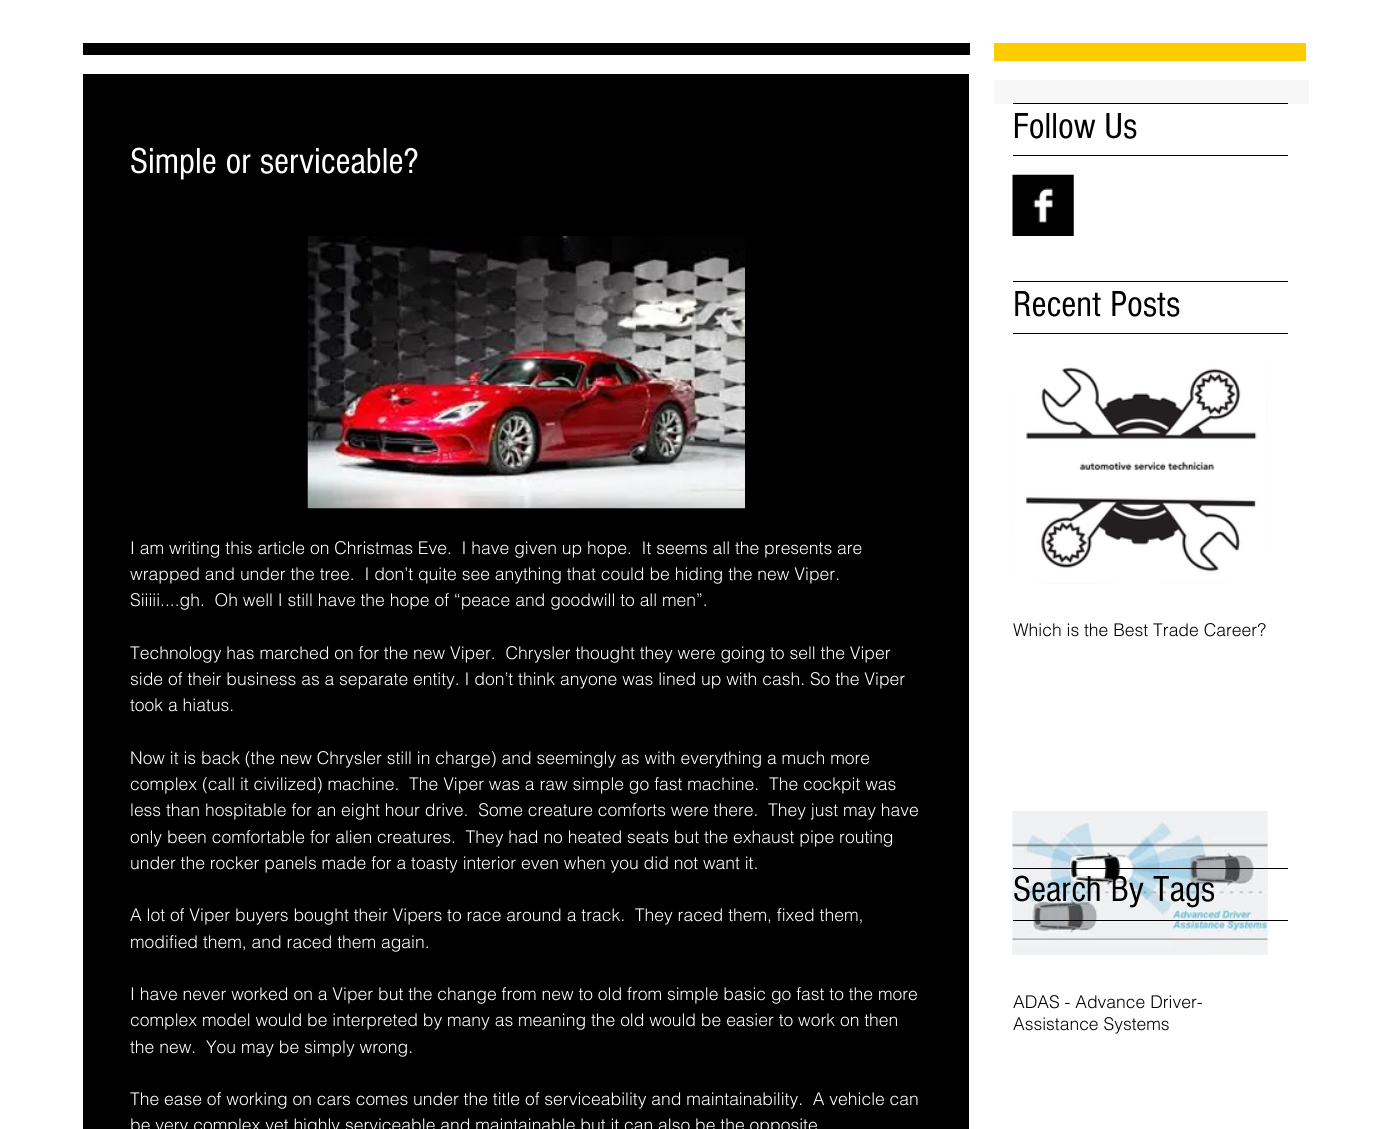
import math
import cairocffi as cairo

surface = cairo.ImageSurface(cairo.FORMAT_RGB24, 1389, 1129)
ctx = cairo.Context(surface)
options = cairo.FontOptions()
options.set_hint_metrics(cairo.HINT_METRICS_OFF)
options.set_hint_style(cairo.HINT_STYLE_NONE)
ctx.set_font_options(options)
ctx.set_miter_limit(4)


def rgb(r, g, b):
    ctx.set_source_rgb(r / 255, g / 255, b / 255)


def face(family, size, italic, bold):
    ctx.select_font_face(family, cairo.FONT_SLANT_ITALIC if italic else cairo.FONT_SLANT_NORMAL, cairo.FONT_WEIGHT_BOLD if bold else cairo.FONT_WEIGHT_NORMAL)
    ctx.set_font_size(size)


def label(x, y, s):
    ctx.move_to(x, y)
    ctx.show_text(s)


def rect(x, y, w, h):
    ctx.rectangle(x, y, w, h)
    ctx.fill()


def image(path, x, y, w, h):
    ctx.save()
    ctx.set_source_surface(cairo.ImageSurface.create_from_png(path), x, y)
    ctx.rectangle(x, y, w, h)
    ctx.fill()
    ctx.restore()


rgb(255, 255, 255)
ctx.paint()
rgb(0, 0, 0)
rect(83, 43, 887, 12)
rgb(255, 204, 0)
rect(994, 43, 312, 18)
rgb(0, 0, 0)
rect(83, 74, 886, 1055)
face('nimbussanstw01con', 37.5, 0, 0)
rgb(255, 255, 255)
label(130, 173, 'Simple or serviceable?')
image('image0.png', 307, 236, 438, 273)
face('helvetica Light', 17.5, 0, 0)
label(130, 554, 'I am writing this article on Christmas Eve.  I have given up hope.  It seems all the presents are')
label(130, 580, 'wrapped and under the tree.  I don’t quite see anything that could be hiding the new Viper.')
label(130, 606, 'Siiiii....gh.  Oh well I still have the hope of “peace and goodwill to all men”.')
label(130, 659, 'Technology has marched on for the new Viper.  Chrysler thought they were going to sell the Viper')
label(130, 685, 'side of their business as a separate entity. I don’t think anyone was lined up with cash. So the Viper')
label(130, 711, 'took a hiatus.')
label(130, 764, 'Now it is back (the new Chrysler still in charge) and seemingly as with everything a much more')
label(130, 790, 'complex (call it civilized) machine.  The Viper was a raw simple go fast machine.  The cockpit was')
label(130, 816, 'less than hospitable for an eight hour drive.  Some creature comforts were there.  They just may have')
label(130, 843, 'only been comfortable for alien creatures.  They had no heated seats but the exhaust pipe routing')
label(130, 869, 'under the rocker panels made for a toasty interior even when you did not want it.')
label(130, 921, 'A lot of Viper buyers bought their Vipers to race around a track.  They raced them, fixed them,')
label(130, 948, 'modified them, and raced them again.')
label(130, 1000, 'I have never worked on a Viper but the change from new to old from simple basic go fast to the more')
label(130, 1026, 'complex model would be interpreted by many as meaning the old would be easier to work on then')
label(130, 1053, 'the new.  You may be simply wrong.')
label(130, 1105, 'The ease of working on cars comes under the title of serviceability and maintainability.  A vehicle can')
label(130, 1131, 'be very complex yet highly serviceable and maintainable but it can also be the opposite')
rgb(247, 247, 247)
rect(994, 80, 315, 24)
rgb(0, 0, 0)
rect(1013, 103, 275, 1)
face('nimbussanstw01con', 37.5, 0, 0)
label(1013, 138, 'Follow Us')
rect(1013, 155, 275, 1)
image('image1.png', 1012, 174, 62, 62)
rect(1013, 281, 275, 1)
label(1013, 316, 'Recent Posts')
rect(1013, 333, 275, 1)
image('image2.png', 1012, 350, 256, 234)
image('image3.png', 1013, 350, 254, 233)
face('helvetica Light', 17.5, 0, 0)
label(1013, 636, 'Which is the Best Trade Career?')
image('image4.png', 1012, 811, 256, 144)
image('image5.png', 1012, 811, 256, 144)
label(1013, 1008, 'ADAS - Advance Driver-')
label(1013, 1030, 'Assistance Systems')
rect(1013, 868, 275, 1)
face('nimbussanstw01con', 37.5, 0, 0)
label(1013, 901, 'Search By Tags')
rect(1013, 920, 275, 1)
surface.write_to_png('render.png')
